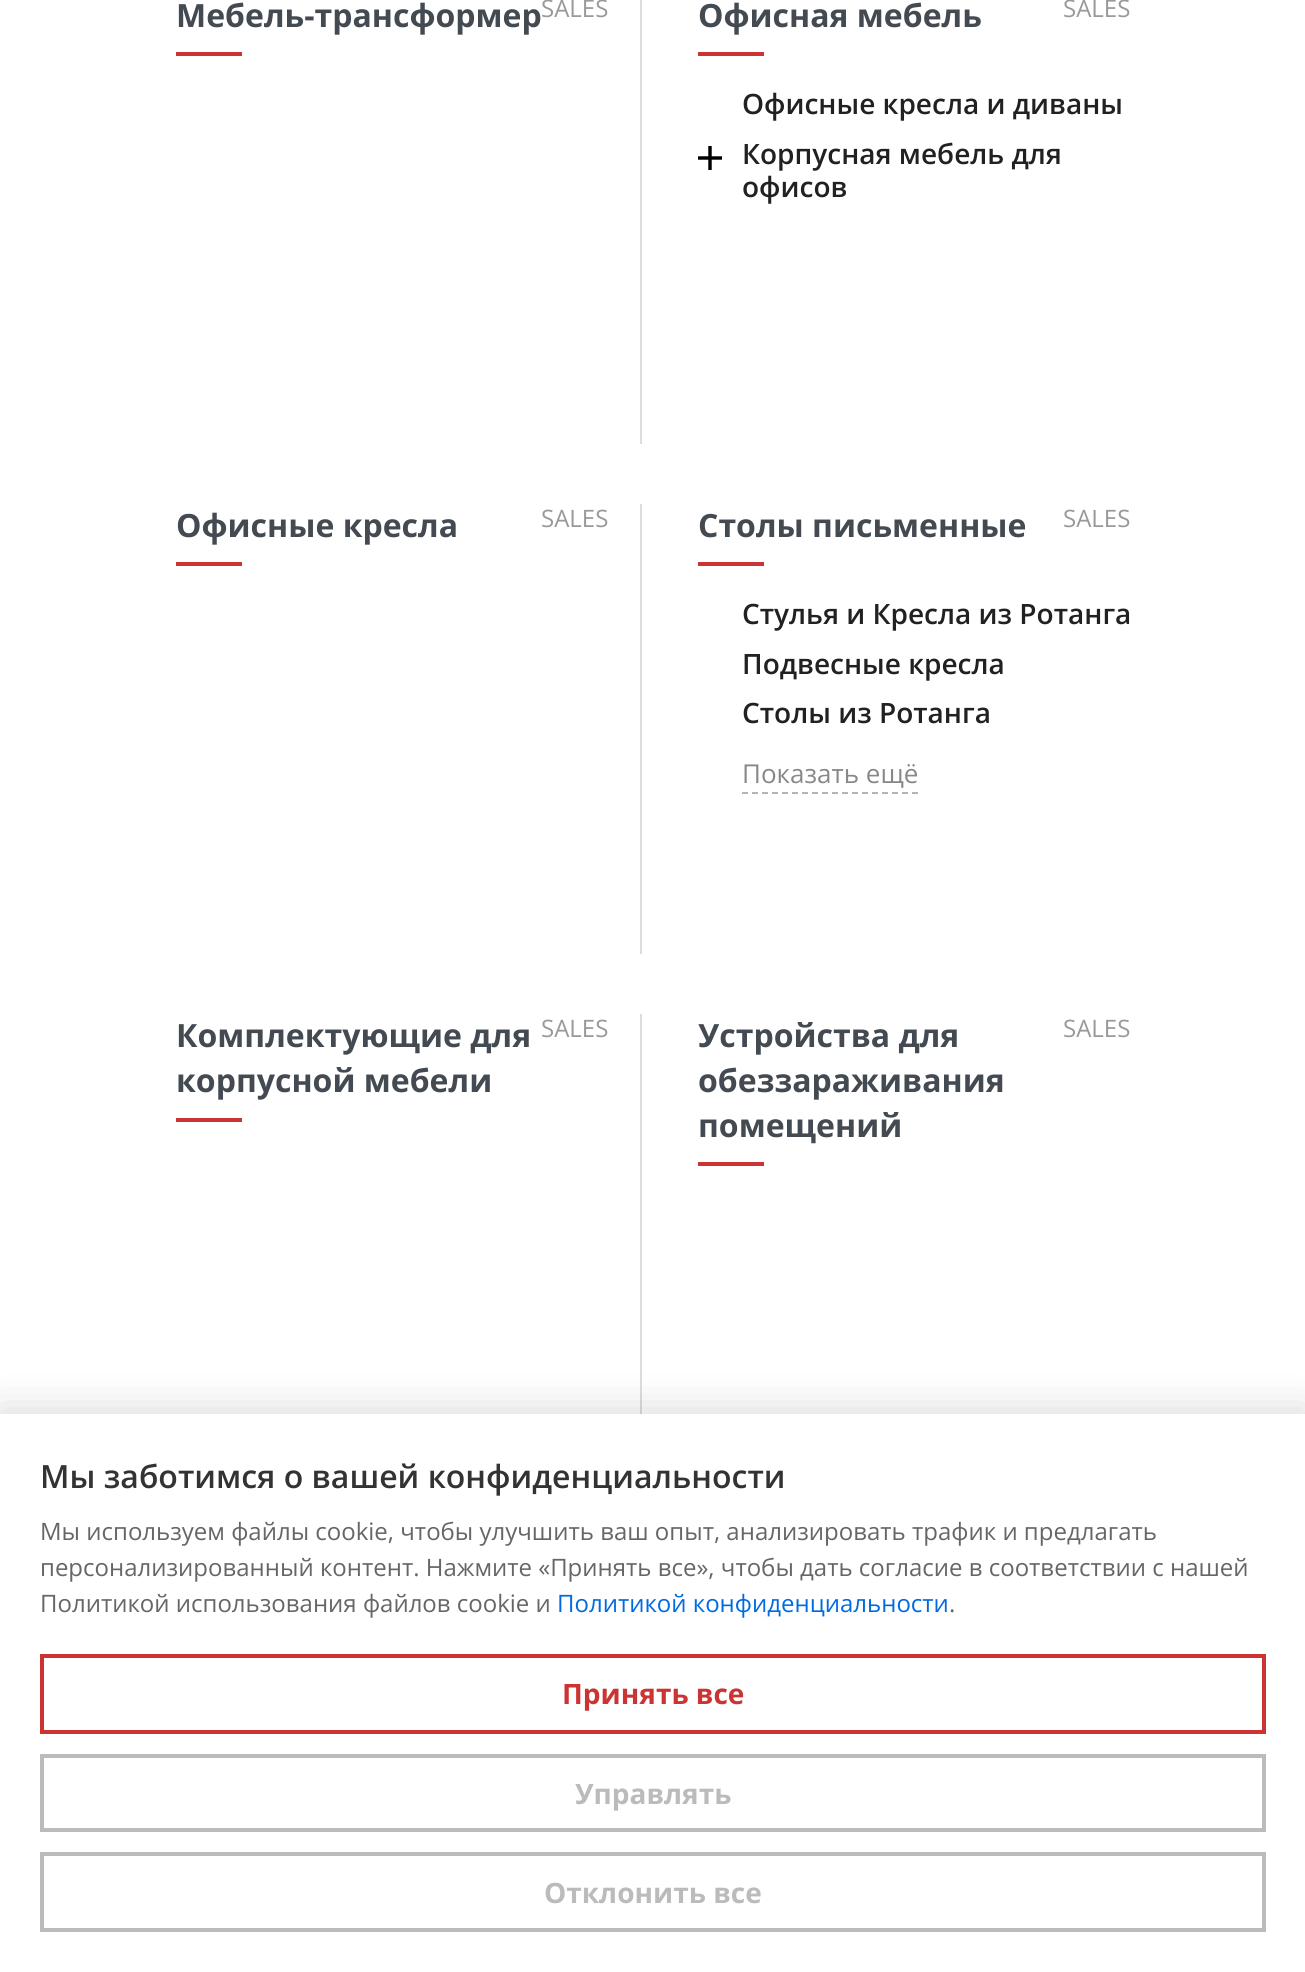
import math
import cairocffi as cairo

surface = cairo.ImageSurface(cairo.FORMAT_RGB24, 1305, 1972)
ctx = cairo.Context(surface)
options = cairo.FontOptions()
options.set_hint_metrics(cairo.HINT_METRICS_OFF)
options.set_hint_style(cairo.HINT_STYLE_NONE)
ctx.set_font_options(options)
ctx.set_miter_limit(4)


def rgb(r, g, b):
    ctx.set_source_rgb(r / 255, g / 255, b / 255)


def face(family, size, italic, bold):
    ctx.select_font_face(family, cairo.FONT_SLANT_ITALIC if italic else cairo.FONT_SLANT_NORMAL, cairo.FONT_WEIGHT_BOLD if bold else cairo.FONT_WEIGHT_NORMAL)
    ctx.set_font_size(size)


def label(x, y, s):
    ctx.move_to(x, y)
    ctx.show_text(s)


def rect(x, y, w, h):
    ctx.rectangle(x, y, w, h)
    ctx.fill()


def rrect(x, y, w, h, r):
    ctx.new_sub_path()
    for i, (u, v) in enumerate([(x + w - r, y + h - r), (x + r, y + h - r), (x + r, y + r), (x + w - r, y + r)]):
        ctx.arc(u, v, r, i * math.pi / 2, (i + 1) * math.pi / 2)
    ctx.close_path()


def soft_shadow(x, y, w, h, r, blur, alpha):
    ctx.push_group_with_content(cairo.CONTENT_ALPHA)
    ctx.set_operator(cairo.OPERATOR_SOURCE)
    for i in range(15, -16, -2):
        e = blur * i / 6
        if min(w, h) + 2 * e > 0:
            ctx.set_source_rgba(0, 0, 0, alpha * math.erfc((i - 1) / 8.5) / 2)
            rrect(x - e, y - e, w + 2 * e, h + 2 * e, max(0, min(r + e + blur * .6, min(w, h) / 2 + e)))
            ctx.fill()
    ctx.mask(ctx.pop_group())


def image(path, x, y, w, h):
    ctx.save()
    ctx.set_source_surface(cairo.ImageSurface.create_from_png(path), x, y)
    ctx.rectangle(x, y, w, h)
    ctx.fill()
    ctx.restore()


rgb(255, 255, 255)
ctx.paint()
face('Open Sans', 32, 0, 1)
rgb(68, 74, 82)
label(176, 27, 'Мебель-трансформер')
rgb(204, 51, 51)
rect(176, 52, 66, 4)
face('Open Sans', 24, 0, 0)
rgb(153, 153, 153)
label(541, 17, 'SALES')
rgb(221, 221, 221)
rect(640, 0, 2, 444)
face('Open Sans', 32, 0, 1)
rgb(68, 74, 82)
label(698, 27, 'Офисная мебель')
rgb(204, 51, 51)
rect(698, 52, 66, 4)
face('Open Sans', 24, 0, 0)
rgb(153, 153, 153)
label(1063, 17, 'SALES')
face('Open Sans SemiBold', 28, 0, 0)
rgb(33, 33, 33)
label(742, 114, 'Офисные кресла и диваны')
image('image0.png', 698, 146, 24, 24)
label(742, 164, 'Корпусная мебель для')
label(742, 197, 'офисов')
face('Open Sans', 32, 0, 1)
rgb(68, 74, 82)
label(176, 537, 'Офисные кресла')
rgb(204, 51, 51)
rect(176, 562, 66, 4)
face('Open Sans', 24, 0, 0)
rgb(153, 153, 153)
label(541, 527, 'SALES')
rgb(221, 221, 221)
rect(640, 504, 2, 450)
face('Open Sans', 32, 0, 1)
rgb(68, 74, 82)
label(698, 537, 'Столы письменные')
rgb(204, 51, 51)
rect(698, 562, 66, 4)
face('Open Sans', 24, 0, 0)
rgb(153, 153, 153)
label(1063, 527, 'SALES')
face('Open Sans SemiBold', 28, 0, 0)
rgb(33, 33, 33)
label(742, 624, 'Стулья и Кресла из Ротанга')
label(742, 674, 'Подвесные кресла')
label(742, 723, 'Столы из Ротанга')
face('Open Sans', 26, 0, 0)
rgb(136, 136, 136)
label(742, 783, 'Показать ещё')
ctx.new_path()
ctx.move_to(742, 793)
ctx.line_to(918, 793)
rgb(179, 179, 179)
ctx.set_dash([6, 4])
ctx.stroke()
face('Open Sans', 32, 0, 1)
rgb(68, 74, 82)
label(176, 1047, 'Комплектующие для')
label(176, 1092, 'корпусной мебели')
rgb(204, 51, 51)
rect(176, 1118, 66, 4)
face('Open Sans', 24, 0, 0)
rgb(153, 153, 153)
label(541, 1037, 'SALES')
rgb(221, 221, 221)
rect(640, 1014, 2, 400)
face('Open Sans', 32, 0, 1)
rgb(68, 74, 82)
label(698, 1047, 'Устройства для')
label(698, 1092, 'обеззараживания')
label(698, 1137, 'помещений')
rgb(204, 51, 51)
rect(698, 1162, 66, 4)
face('Open Sans', 24, 0, 0)
rgb(153, 153, 153)
label(1063, 1037, 'SALES')
rgb(0, 0, 0)
soft_shadow(0, 1410, 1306, 558, 0, 20, 0.15)
rgb(255, 255, 255)
rect(0, 1414, 1305, 558)
face('Open Sans SemiBold', 32, 0, 0)
rgb(51, 51, 51)
label(40, 1488, 'Мы заботимся о вашей конфиденциальности')
face('Open Sans', 24, 0, 0)
rgb(102, 102, 102)
label(40, 1540, 'Мы используем файлы cookie, чтобы улучшить ваш опыт, анализировать трафик и предлагать')
label(40, 1576, 'персонализированный контент. Нажмите «Принять все», чтобы дать согласие в соответствии с нашей')
label(40, 1612, 'Политикой использования файлов cookie и')
rgb(0, 107, 224)
label(557, 1612, 'Политикой конфиденциальности')
rgb(102, 102, 102)
label(949, 1612, '.')
ctx.rectangle(42, 1656, 1222, 76)
rgb(204, 51, 51)
ctx.set_line_width(4)
ctx.set_dash([])
ctx.stroke()
face('Open Sans', 28, 0, 1)
label(562, 1704, 'Принять все')
ctx.rectangle(42, 1756, 1222, 74)
rgb(187, 187, 187)
ctx.stroke()
label(575, 1804, 'Управлять')
ctx.rectangle(42, 1854, 1222, 76)
ctx.stroke()
label(544, 1903, 'Отклонить все')
surface.write_to_png('render.png')
